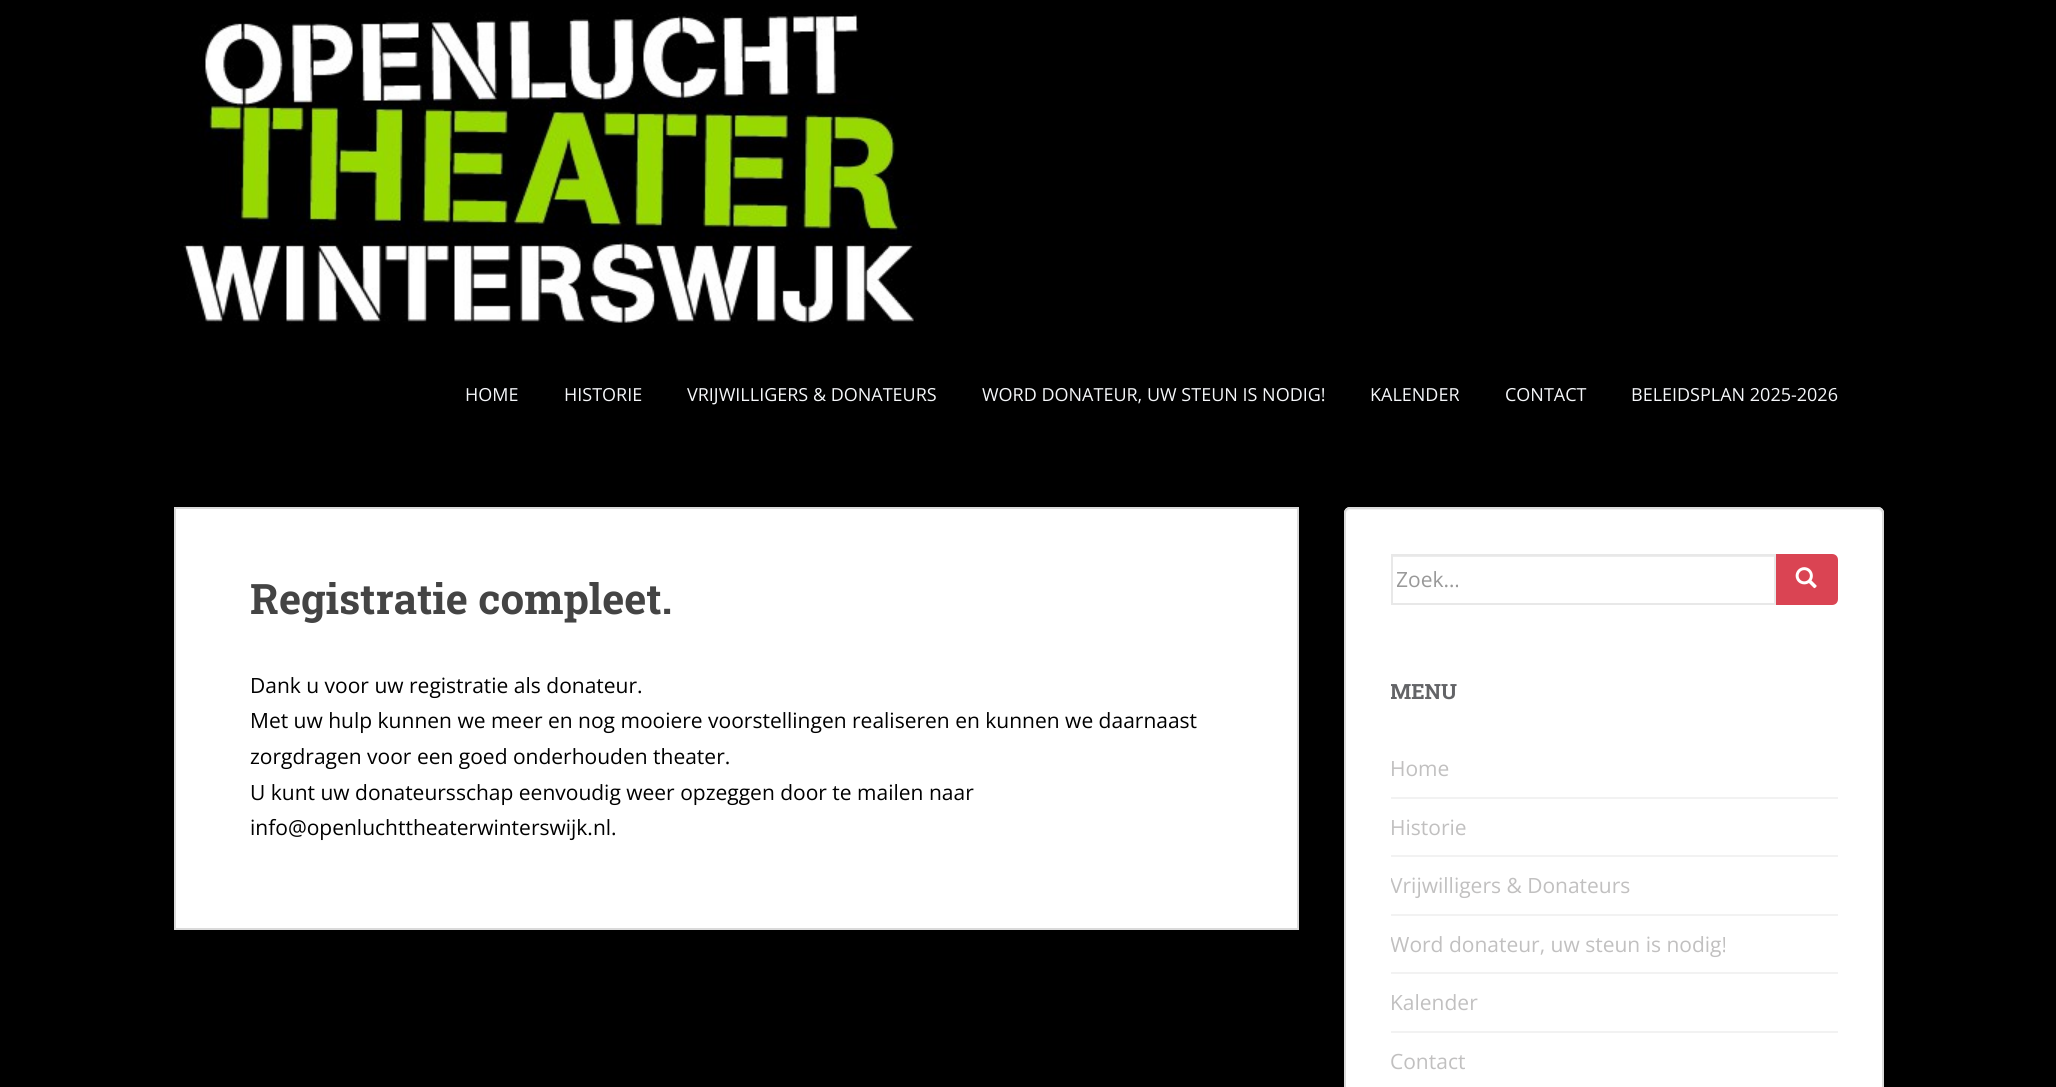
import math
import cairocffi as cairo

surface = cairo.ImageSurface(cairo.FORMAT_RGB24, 2056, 1087)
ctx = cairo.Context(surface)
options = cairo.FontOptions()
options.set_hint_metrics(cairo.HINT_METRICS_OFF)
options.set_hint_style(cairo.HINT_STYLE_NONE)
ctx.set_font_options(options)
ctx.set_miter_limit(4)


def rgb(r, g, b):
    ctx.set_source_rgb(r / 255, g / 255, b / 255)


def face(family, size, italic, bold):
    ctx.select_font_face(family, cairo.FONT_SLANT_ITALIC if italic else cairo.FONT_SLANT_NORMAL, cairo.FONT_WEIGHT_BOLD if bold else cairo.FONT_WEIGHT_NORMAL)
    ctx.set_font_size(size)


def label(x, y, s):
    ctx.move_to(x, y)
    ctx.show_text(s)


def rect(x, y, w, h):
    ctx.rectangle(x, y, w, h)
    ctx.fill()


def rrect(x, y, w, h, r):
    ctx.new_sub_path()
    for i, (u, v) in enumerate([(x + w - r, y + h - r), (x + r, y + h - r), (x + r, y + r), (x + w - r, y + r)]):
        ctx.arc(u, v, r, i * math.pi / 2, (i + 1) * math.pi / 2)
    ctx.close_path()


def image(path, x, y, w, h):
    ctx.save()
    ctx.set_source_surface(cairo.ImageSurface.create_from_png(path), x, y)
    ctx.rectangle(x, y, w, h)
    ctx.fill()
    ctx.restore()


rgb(0, 0, 0)
ctx.paint()
image('image0.png', 180, 12, 738, 312)
face('Open Sans', 18, 0, 0)
rgb(245, 247, 250)
label(465, 401, 'HOME')
label(564, 401, 'HISTORIE')
label(687, 401, 'VRIJWILLIGERS & DONATEURS')
label(982, 401, 'WORD DONATEUR, UW STEUN IS NODIG!')
label(1370, 401, 'KALENDER')
label(1505, 401, 'CONTACT')
label(1631, 401, 'BELEIDSPLAN 2025-2026')
rgb(255, 255, 255)
ctx.rectangle(175, 508, 1123, 421)
ctx.fill_preserve()
rgb(218, 218, 218)
ctx.stroke()
face('Roboto Slab', 42, 0, 1)
rgb(68, 68, 68)
label(250, 614, 'Registratie compleet.')
face('Open Sans', 21, 0, 0)
rgb(0, 0, 0)
label(250, 693, 'Dank u voor uw registratie als donateur.')
label(250, 728, 'Met uw hulp kunnen we meer en nog mooiere voorstellingen realiseren en kunnen we daarnaast')
label(250, 764, 'zorgdragen voor een goed onderhouden theater.')
label(250, 800, 'U kunt uw donateursschap eenvoudig weer opzeggen door te mailen naar')
label(250, 835, 'info@openluchttheaterwinterswijk.nl.')
rgb(255, 255, 255)
rrect(1344, 507, 540, 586, 6)
ctx.fill()
rgb(242, 242, 242)
ctx.new_path()
ctx.move_to(1350, 510)
ctx.line_to(1878, 510)
ctx.curve_to(1880, 510, 1882, 512, 1882, 514)
ctx.line_to(1882, 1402)
ctx.curve_to(1883, 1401, 1883, 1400, 1883, 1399)
ctx.line_to(1883, 514)
ctx.curve_to(1883, 511, 1881, 509, 1878, 509)
ctx.line_to(1351, 509)
ctx.curve_to(1348, 509, 1346, 511, 1346, 514)
ctx.curve_to(1346, 512, 1348, 510, 1350, 510)
ctx.close_path()
ctx.fill()
rrect(1345, 508, 538, 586, 5)
rgb(218, 218, 218)
ctx.stroke()
rgb(236, 236, 236)
rect(1392, 556, 383, 1)
ctx.rectangle(1392, 555, 383, 49)
rgb(232, 232, 232)
ctx.stroke()
ctx.save()
ctx.rectangle(1397, 566, 373, 28)
ctx.clip()
rgb(153, 153, 153)
label(1396, 587, 'Zoek…')
ctx.restore()
rgb(218, 68, 83)
ctx.new_path()
ctx.move_to(1777, 555)
ctx.line_to(1832, 555)
ctx.curve_to(1835, 555, 1837, 557, 1837, 560)
ctx.line_to(1837, 599)
ctx.curve_to(1837, 602, 1835, 604, 1832, 604)
ctx.line_to(1777, 604)
ctx.close_path()
ctx.fill_preserve()
ctx.stroke()
image('image1.png', 1795, 567, 22, 22)
ctx.save()
ctx.rectangle(1391, 680, 447, 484)
ctx.clip()
face('Roboto Slab', 21, 0, 1)
rgb(99, 100, 103)
label(1390, 699, 'MENU')
ctx.restore()
rgb(242, 242, 242)
rect(1391, 797, 447, 2)
rgb(193, 192, 192)
label(1390, 776, 'Home')
rgb(242, 242, 242)
rect(1391, 855, 447, 2)
rgb(193, 192, 192)
label(1390, 835, 'Historie')
rgb(242, 242, 242)
rect(1391, 914, 447, 2)
ctx.save()
ctx.rectangle(1391, 680, 447, 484)
ctx.clip()
rgb(193, 192, 192)
label(1390, 893, 'Vrijwilligers & Donateurs')
ctx.restore()
rect(1391, 972, 447, 2)
ctx.save()
ctx.rectangle(1391, 680, 447, 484)
ctx.clip()
rgb(193, 192, 192)
label(1390, 952, 'Word donateur, uw steun is nodig!')
ctx.restore()
rect(1391, 1031, 447, 2)
rgb(193, 192, 192)
label(1390, 1010, 'Kalender')
label(1390, 1069, 'Contact')
surface.write_to_png('render.png')
